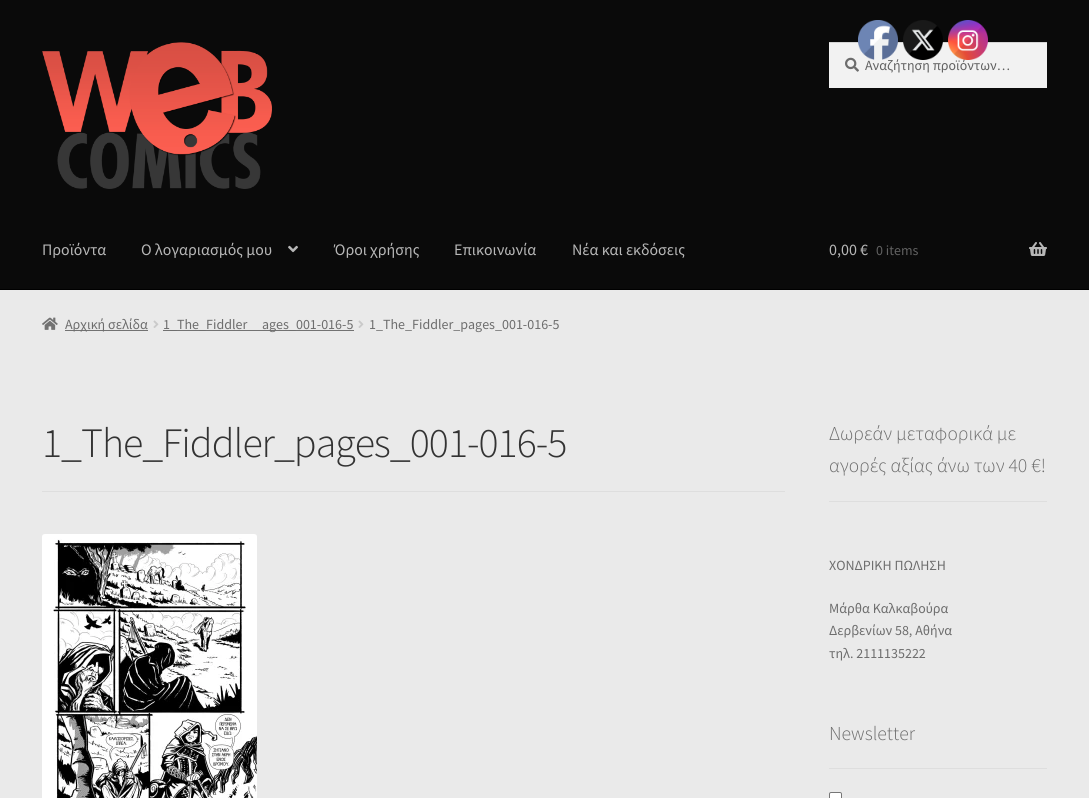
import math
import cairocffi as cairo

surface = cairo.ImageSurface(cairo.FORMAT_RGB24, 1089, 798)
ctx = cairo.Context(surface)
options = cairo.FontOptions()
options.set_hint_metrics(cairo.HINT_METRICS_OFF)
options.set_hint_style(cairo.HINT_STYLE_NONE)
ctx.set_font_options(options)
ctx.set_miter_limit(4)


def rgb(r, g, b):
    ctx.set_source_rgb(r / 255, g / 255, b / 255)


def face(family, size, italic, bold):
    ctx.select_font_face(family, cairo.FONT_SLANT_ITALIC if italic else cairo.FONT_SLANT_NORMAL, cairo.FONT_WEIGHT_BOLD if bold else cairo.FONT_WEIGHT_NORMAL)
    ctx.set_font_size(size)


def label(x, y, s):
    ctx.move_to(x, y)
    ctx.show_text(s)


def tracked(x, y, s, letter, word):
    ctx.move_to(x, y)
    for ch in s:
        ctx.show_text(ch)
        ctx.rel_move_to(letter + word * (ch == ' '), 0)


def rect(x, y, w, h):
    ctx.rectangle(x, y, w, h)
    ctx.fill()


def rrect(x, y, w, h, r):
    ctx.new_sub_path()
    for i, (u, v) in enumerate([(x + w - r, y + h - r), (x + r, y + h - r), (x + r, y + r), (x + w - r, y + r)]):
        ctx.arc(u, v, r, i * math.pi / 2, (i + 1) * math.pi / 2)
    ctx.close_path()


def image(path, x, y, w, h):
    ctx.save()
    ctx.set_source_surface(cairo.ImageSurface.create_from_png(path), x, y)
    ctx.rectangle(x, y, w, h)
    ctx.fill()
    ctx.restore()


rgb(234, 234, 234)
ctx.paint()
rgb(10, 10, 10)
rect(0, 0, 1089, 289)
rgb(242, 242, 242)
rect(829, 43, 218, 45)
image('image4.png', 845, 57, 14, 15)
rgb(212, 212, 212)
rect(829, 42, 218, 1)
face('Source Sans Pro', 14, 0, 0)
rgb(97, 97, 97)
label(865, 70, 'Αναζήτηση προϊόντων…')
image('image0.png', 858, 20, 40, 40)
image('image1.png', 903, 20, 40, 40)
image('image2.png', 948, 20, 40, 40)
rgb(0, 0, 0)
rect(0, 289, 1089, 1)
image('image3.png', 42, 42, 230, 147)
face('Source Sans Pro', 16, 0, 0)
rgb(183, 183, 183)
label(42, 255, 'Προϊόντα')
label(141, 255, 'Ο λογαριασμός μου')
image('image5.png', 288, 245, 10, 8)
label(334, 255, 'Όροι χρήσης')
label(454, 255, 'Επικοινωνία')
label(572, 255, 'Νέα και εκδόσεις')
label(829, 255, '0,00 €')
face('Source Sans Pro', 14, 0, 0)
rgb(97, 97, 97)
label(876, 255, '0 items')
image('image6.png', 1029, 242, 18, 14)
image('image7.png', 42, 317, 16, 13)
rgb(114, 114, 114)
rect(65, 330, 83, 1)
rgb(109, 109, 109)
label(65, 329, 'Αρχική σελίδα')
image('image8.png', 153, 320, 6, 8)
rgb(114, 114, 114)
rect(163, 330, 191, 1)
rgb(109, 109, 109)
label(163, 329, '1_The_Fiddler')
label(262, 329, 'ages_001-016-5')
image('image8.png', 358, 320, 6, 8)
label(369, 329, '1_The_Fiddler_pages_001-016-5')
rgb(222, 222, 222)
rect(42, 491, 743, 1)
face('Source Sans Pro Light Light', 41.9, 0, 0)
rgb(51, 51, 51)
tracked(42, 457, '1_The_Fiddler_pages_001-016-5', -1, 0)
image('image9.png', 42, 534, 215, 264)
rgb(222, 222, 222)
rect(829, 501, 218, 1)
face('Source Sans Pro Light Light', 19.75, 0, 0)
rgb(109, 109, 109)
label(829, 440, 'Δωρεάν μεταφορικά με')
label(829, 472, 'αγορές αξίας άνω των 40 €!')
face('Source Sans Pro', 14, 0, 0)
label(829, 570, 'ΧΟΝΔΡΙΚΗ ΠΩΛΗΣΗ')
label(829, 613, 'Μάρθα Καλκαβούρα')
label(829, 635, 'Δερβενίων 58, Αθήνα')
label(829, 658, 'τηλ. 2111135222')
rgb(222, 222, 222)
rect(829, 768, 218, 1)
face('Source Sans Pro Light Light', 19.75, 0, 0)
rgb(109, 109, 109)
label(829, 740, 'Newsletter')
rgb(255, 255, 255)
rrect(829.5, 792.5, 12, 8, 1.5)
ctx.fill_preserve()
rgb(118, 118, 118)
ctx.set_line_width(1)
ctx.stroke()
surface.write_to_png('render.png')
